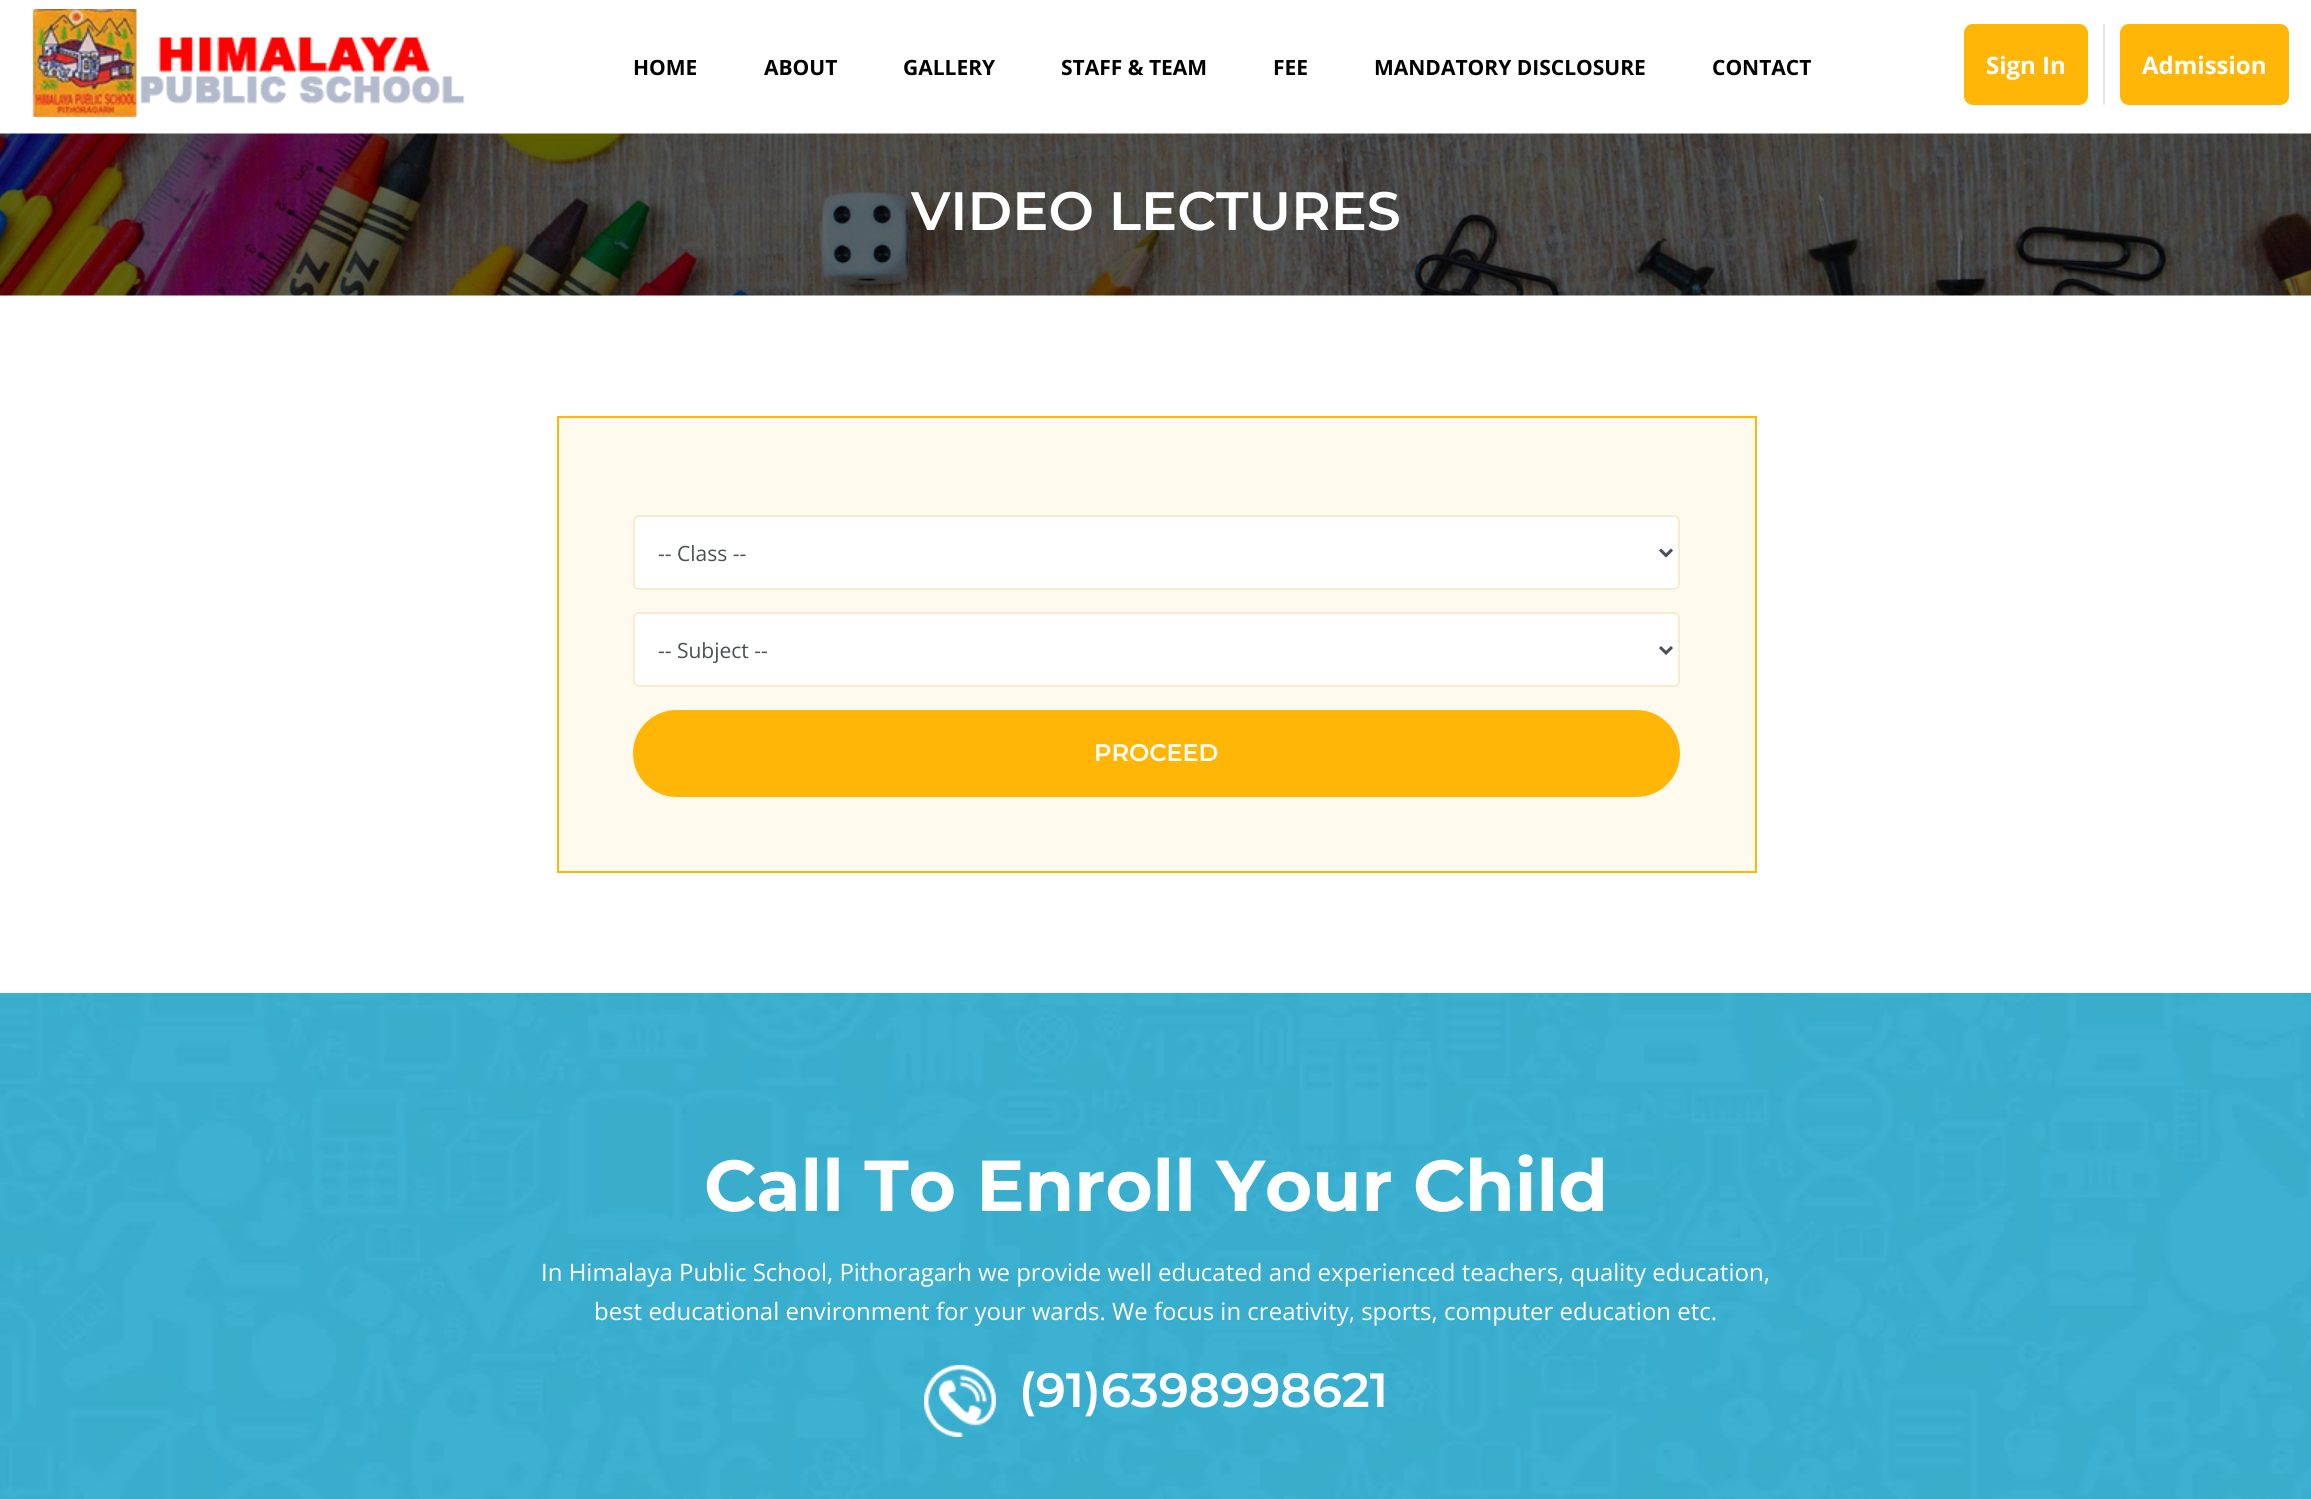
import math
import cairocffi as cairo

surface = cairo.ImageSurface(cairo.FORMAT_RGB24, 2311, 1499)
ctx = cairo.Context(surface)
options = cairo.FontOptions()
options.set_hint_metrics(cairo.HINT_METRICS_OFF)
options.set_hint_style(cairo.HINT_STYLE_NONE)
ctx.set_font_options(options)
ctx.set_miter_limit(4)


def rgb(r, g, b):
    ctx.set_source_rgb(r / 255, g / 255, b / 255)


def face(family, size, italic, bold):
    ctx.select_font_face(family, cairo.FONT_SLANT_ITALIC if italic else cairo.FONT_SLANT_NORMAL, cairo.FONT_WEIGHT_BOLD if bold else cairo.FONT_WEIGHT_NORMAL)
    ctx.set_font_size(size)


def label(x, y, s):
    ctx.move_to(x, y)
    ctx.show_text(s)


def rect(x, y, w, h):
    ctx.rectangle(x, y, w, h)
    ctx.fill()


def rrect(x, y, w, h, r):
    ctx.new_sub_path()
    for i, (u, v) in enumerate([(x + w - r, y + h - r), (x + r, y + h - r), (x + r, y + r), (x + w - r, y + r)]):
        ctx.arc(u, v, r, i * math.pi / 2, (i + 1) * math.pi / 2)
    ctx.close_path()


def image(path, x, y, w, h):
    ctx.save()
    ctx.set_source_surface(cairo.ImageSurface.create_from_png(path), x, y)
    ctx.rectangle(x, y, w, h)
    ctx.fill()
    ctx.restore()


rgb(255, 255, 255)
ctx.paint()
image('image0.png', 32, 9, 433, 108)
face('Open Sans', 21, 0, 1)
rgb(0, 0, 0)
label(633, 75, 'HOME')
label(764, 75, 'ABOUT')
label(903, 75, 'GALLERY')
label(1061, 75, 'STAFF & TEAM')
label(1273, 75, 'FEE')
label(1374, 75, 'MANDATORY DISCLOSURE')
label(1712, 75, 'CONTACT')
rgb(232, 232, 232)
rect(2103, 24, 2, 81)
rgb(255, 182, 7)
rrect(1964, 24, 124, 81, 9)
ctx.fill()
face('Open Sans', 24, 0, 1)
rgb(255, 255, 255)
label(1986, 74, 'Sign In')
rgb(255, 182, 7)
rrect(2120, 24, 169, 81, 9)
ctx.fill()
rgb(255, 255, 255)
label(2142, 74, 'Admission')
image('image1.png', 0, 133, 2311, 163)
face('Montserrat SemiBold', 54, 0, 0)
label(911, 230, 'VIDEO LECTURES')
rgb(255, 250, 238)
ctx.rectangle(558, 417, 1198, 455)
ctx.fill_preserve()
rgb(255, 182, 7)
ctx.stroke()
rgb(255, 255, 255)
rrect(634, 516, 1045, 73, 5)
ctx.fill_preserve()
rgb(249, 236, 205)
ctx.stroke()
ctx.new_path()
ctx.move_to(1660, 549.5)
ctx.line_to(1666, 555.5)
ctx.line_to(1672, 549.5)
rgb(73, 80, 87)
ctx.set_line_width(3)
ctx.stroke()
face('Open Sans', 21, 0, 0)
label(658, 561, '-- Class --')
rgb(255, 255, 255)
rrect(634, 613, 1045, 73, 5)
ctx.fill_preserve()
rgb(249, 236, 205)
ctx.set_line_width(2)
ctx.stroke()
ctx.new_path()
ctx.move_to(1660, 647)
ctx.line_to(1666, 653)
ctx.line_to(1672, 647)
rgb(73, 80, 87)
ctx.set_line_width(3)
ctx.stroke()
label(658, 658, '-- Subject --')
rgb(255, 182, 7)
rrect(633, 710, 1047, 87, 43.5)
ctx.fill()
face('Montserrat SemiBold', 24, 0, 0)
rgb(255, 255, 255)
label(1094, 761, 'PROCEED')
image('image2.png', 0, 993, 2311, 506)
face('Montserrat', 72, 0, 1)
label(704, 1211, 'Call To Enroll Your Child')
face('Open Sans', 24, 0, 0)
label(541, 1281, 'In Himalaya Public School, Pithoragarh we provide well educated and experienced teachers, quality education,')
label(594, 1320, 'best educational environment for your wards. We focus in creativity, sports, computer education etc.')
image('image3.png', 924, 1365, 72, 72)
face('Montserrat SemiBold', 48, 0, 0)
label(1019, 1407, '(91)6398998621')
surface.write_to_png('render.png')
